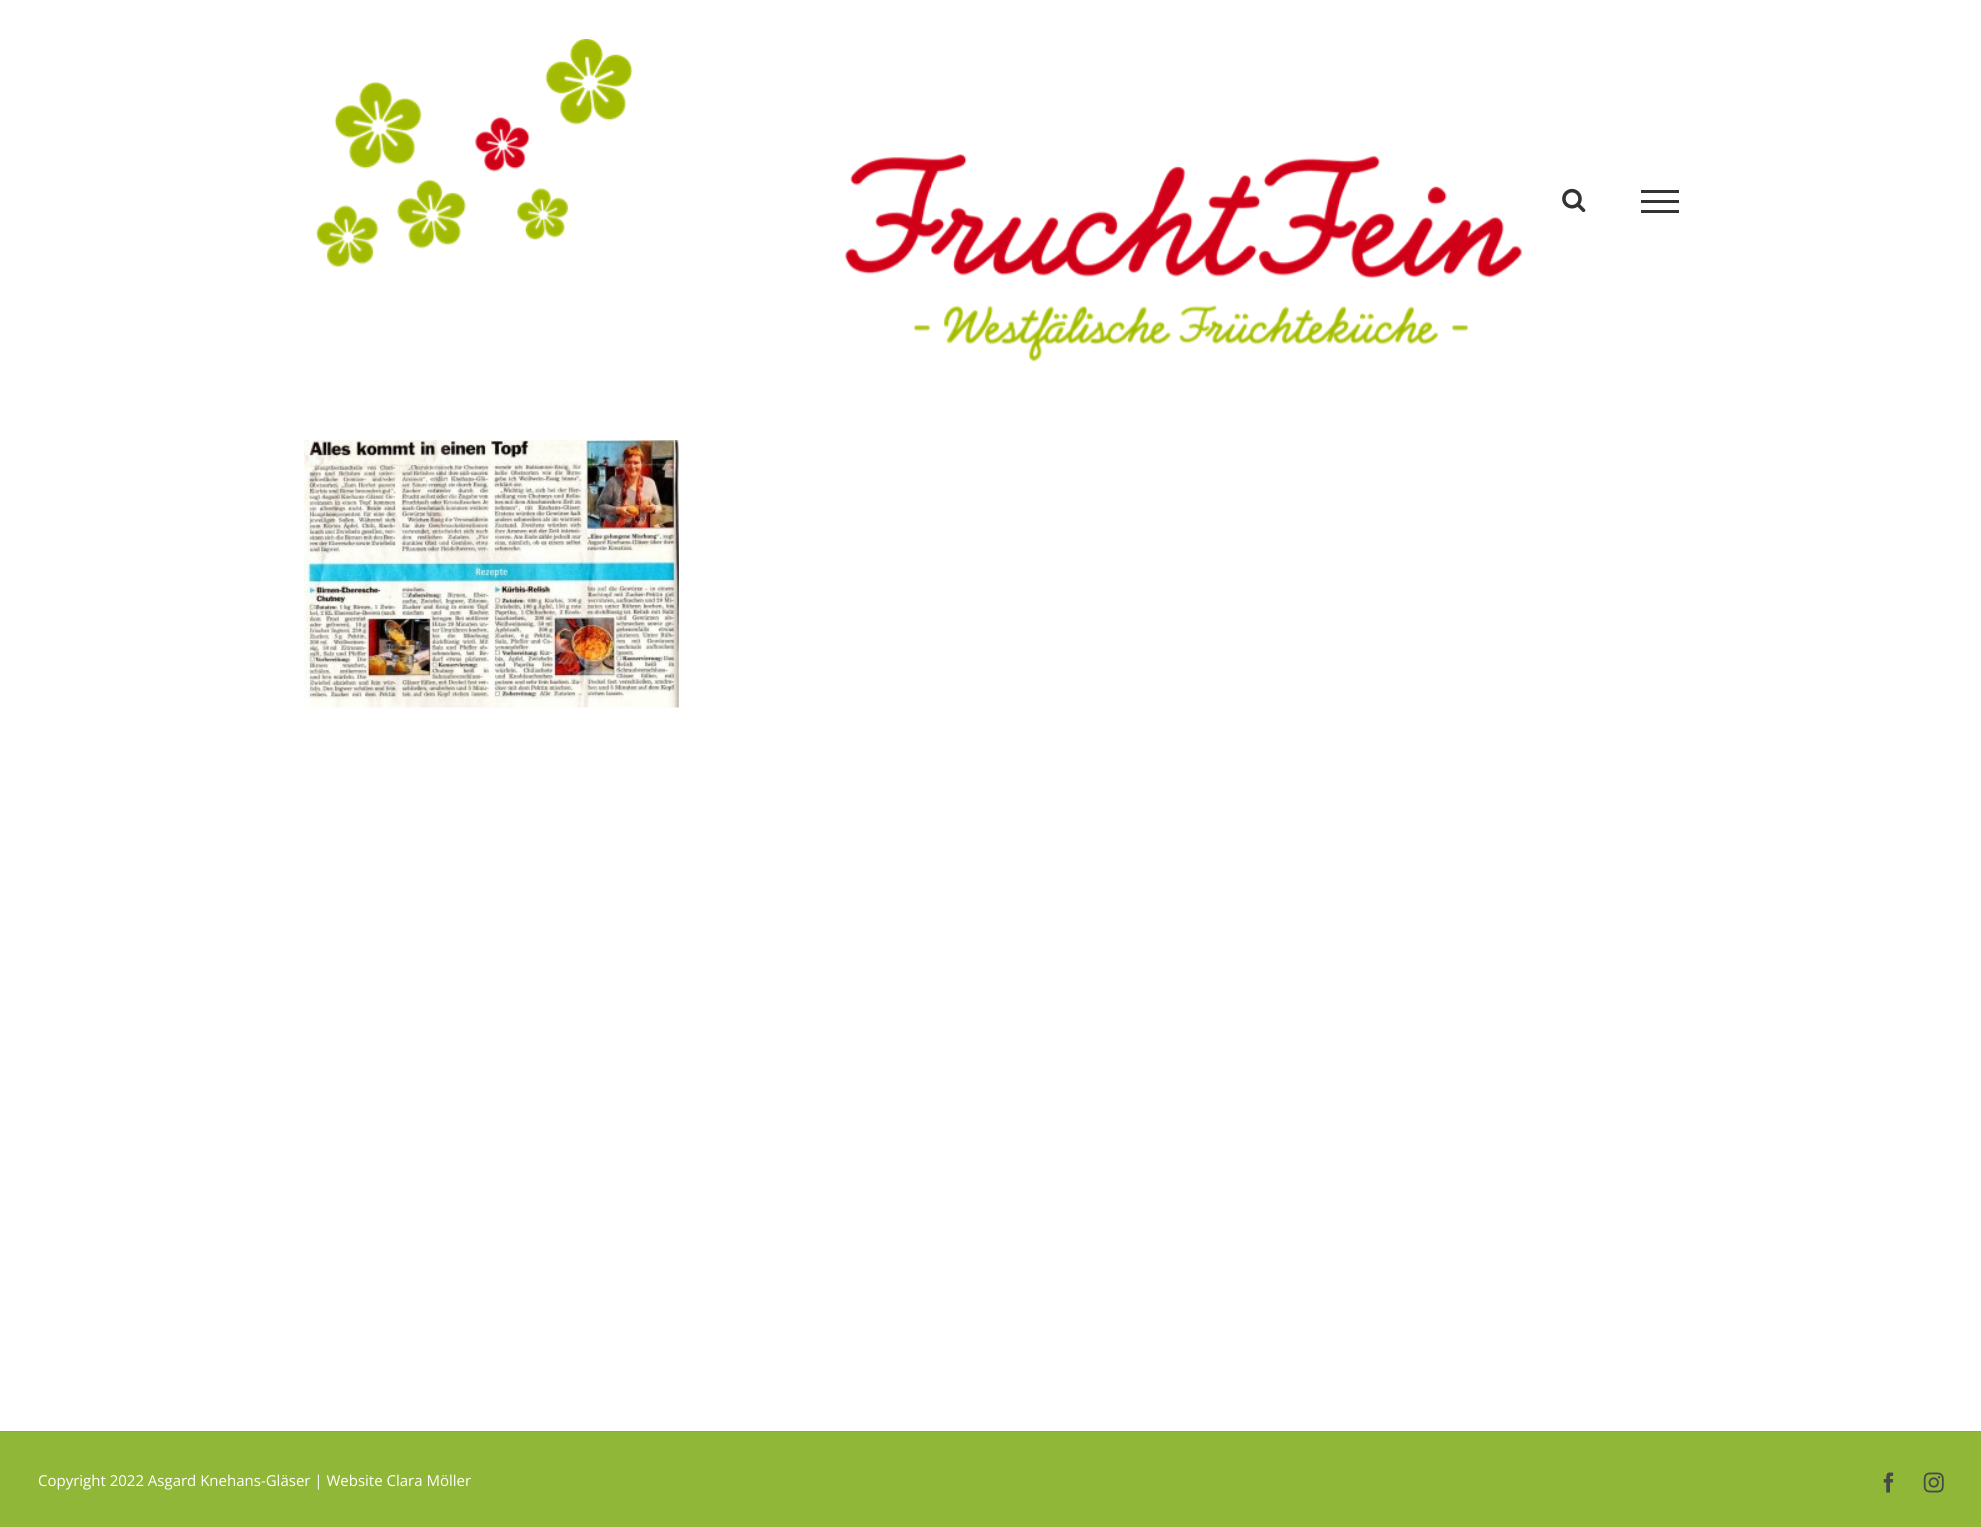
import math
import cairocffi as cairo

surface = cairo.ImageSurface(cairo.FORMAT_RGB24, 1981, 1527)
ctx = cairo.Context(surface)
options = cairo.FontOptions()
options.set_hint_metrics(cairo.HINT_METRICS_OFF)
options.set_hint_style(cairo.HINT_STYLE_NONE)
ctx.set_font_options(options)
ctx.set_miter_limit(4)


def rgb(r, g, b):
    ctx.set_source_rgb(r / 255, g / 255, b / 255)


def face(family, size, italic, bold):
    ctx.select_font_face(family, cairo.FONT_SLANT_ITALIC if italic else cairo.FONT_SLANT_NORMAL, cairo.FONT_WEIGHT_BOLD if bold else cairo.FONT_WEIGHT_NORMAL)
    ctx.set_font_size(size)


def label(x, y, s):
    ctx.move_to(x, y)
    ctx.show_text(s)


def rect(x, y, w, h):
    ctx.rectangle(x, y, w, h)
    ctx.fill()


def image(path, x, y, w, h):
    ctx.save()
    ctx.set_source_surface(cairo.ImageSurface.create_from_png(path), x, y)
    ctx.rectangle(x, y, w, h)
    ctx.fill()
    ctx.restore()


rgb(255, 255, 255)
ctx.paint()
image('image0.png', 316, 39, 1207, 323)
image('image1.png', 1562, 188, 24, 25)
rgb(51, 51, 51)
rect(1641, 190, 38, 3)
rect(1641, 200, 38, 3)
rect(1641, 210, 38, 3)
image('image2.png', 303, 440, 376, 268)
rgb(145, 183, 57)
rect(0, 1432, 1981, 95)
rgb(116, 184, 67)
rect(0, 1431, 1981, 1)
face('Open Sans', 15, 0, 0)
rgb(255, 255, 255)
label(38, 1486, 'Copyright 2022 Asgard Knehans-Gläser | Website Clara Möller')
image('image3.png', 1883, 1472, 11, 21)
image('image4.png', 1923, 1472, 21, 21)
surface.write_to_png('render.png')
